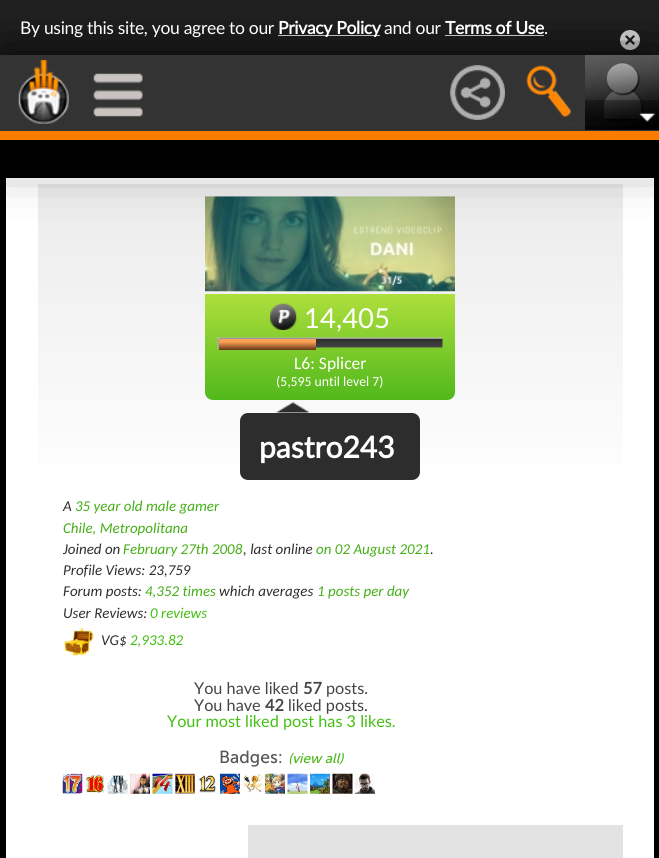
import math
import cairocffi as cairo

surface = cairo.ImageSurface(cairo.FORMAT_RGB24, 659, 858)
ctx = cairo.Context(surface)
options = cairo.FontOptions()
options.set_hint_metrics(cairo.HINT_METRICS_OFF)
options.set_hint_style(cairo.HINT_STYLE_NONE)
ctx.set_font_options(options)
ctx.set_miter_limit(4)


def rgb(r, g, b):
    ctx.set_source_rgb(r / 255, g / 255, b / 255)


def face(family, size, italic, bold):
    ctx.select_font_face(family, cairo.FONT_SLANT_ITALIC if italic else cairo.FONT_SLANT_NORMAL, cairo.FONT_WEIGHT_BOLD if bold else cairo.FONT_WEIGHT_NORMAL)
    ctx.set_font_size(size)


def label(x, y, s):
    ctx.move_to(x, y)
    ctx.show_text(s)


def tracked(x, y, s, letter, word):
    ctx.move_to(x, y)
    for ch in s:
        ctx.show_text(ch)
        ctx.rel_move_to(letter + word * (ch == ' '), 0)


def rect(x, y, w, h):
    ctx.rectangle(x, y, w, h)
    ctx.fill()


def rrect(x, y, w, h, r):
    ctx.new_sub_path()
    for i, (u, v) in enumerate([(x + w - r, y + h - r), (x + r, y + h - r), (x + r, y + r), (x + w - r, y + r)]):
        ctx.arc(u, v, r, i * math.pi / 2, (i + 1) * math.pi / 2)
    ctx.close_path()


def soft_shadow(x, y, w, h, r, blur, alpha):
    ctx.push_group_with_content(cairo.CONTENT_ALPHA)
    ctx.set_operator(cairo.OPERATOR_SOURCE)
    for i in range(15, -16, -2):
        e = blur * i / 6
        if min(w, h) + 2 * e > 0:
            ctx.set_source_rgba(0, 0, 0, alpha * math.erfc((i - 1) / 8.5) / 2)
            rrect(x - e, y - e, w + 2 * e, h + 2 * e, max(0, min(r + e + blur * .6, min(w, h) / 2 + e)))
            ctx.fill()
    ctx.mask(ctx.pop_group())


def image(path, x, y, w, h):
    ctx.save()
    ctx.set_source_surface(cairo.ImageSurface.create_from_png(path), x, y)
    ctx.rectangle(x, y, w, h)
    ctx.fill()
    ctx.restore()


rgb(0, 0, 0)
ctx.paint()
rgb(34, 34, 34)
rect(0, 0, 659, 55)
rgb(255, 255, 255)
rect(278, 35, 102, 1)
rect(445, 35, 99, 1)
image('image6.png', 620, 30, 20, 20)
rect(6, 178, 648, 680)
gradient = cairo.LinearGradient(38, 184, 38, 825)
gradient.add_color_stop_rgba(0, 0.922, 0.922, 0.922, 1)
gradient.add_color_stop_rgba(0.5, 1, 1, 1, 1)
gradient.add_color_stop_rgba(1, 1, 1, 1, 1)
ctx.set_source(gradient)
rect(38, 184, 585, 280)
image('image7.png', 205, 196, 250, 96)
rgb(0, 0, 0)
soft_shadow(0, 56, 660, 85, 0, 31, 1)
rgb(51, 51, 51)
rect(0, 55, 659, 76)
image('image0.png', 18, 59, 51, 65)
image('image1.png', 93, 73, 50, 44)
image('image2.png', 450, 65, 55, 55)
image('image3.png', 526, 58, 47, 67)
image('image4.png', 585, 55, 74, 75)
image('image5.png', 585, 100, 74, 23)
rgb(249, 123, 0)
rect(0, 131, 659, 9)
face('Lato', 17.5, 0, 0)
rgb(255, 255, 255)
tracked(20, 34, 'By using this site, you agree to our', -0.3, 0)
face('Lato', 17.5, 0, 1)
tracked(278, 34, 'Privacy Policy', -0.3, 0)
face('Lato', 17.5, 0, 0)
tracked(384, 34, 'and our', -0.3, 0)
face('Lato', 17.5, 0, 1)
tracked(445, 34, 'Terms of Use', -0.3, 0)
face('Lato', 17.5, 0, 0)
tracked(544, 34, '.', -0.3, 0)
gradient = cairo.LinearGradient(205, 294, 205, 400)
gradient.add_color_stop_rgba(0, 0.682, 0.875, 0.235, 1)
gradient.add_color_stop_rgba(1, 0.318, 0.722, 0.11, 1)
ctx.set_source(gradient)
ctx.new_path()
ctx.move_to(205, 294)
ctx.line_to(455, 294)
ctx.line_to(455, 392)
ctx.curve_to(455, 396.5, 451.5, 400, 447, 400)
ctx.line_to(213, 400)
ctx.curve_to(208.5, 400, 205, 396.5, 205, 392)
ctx.close_path()
ctx.fill()
image('image8.png', 270, 303, 27, 27)
face('Lato', 27.5, 0, 0)
rgb(255, 255, 255)
label(304, 328, '14,405')
image('image9.png', 217, 337, 226, 11)
gradient = cairo.LinearGradient(219, 339, 219, 350)
gradient.add_color_stop_rgba(0, 1, 0.635, 0.341, 1)
gradient.add_color_stop_rgba(0.25, 1, 0.635, 0.341, 1)
gradient.add_color_stop_rgba(1, 0.384, 0.216, 0.078, 1)
ctx.set_source(gradient)
rect(219, 339, 97, 11)
face('Carlito', 17.5, 0, 0)
rgb(255, 255, 255)
label(294, 369, 'L6: Splicer')
face('Carlito', 13.75, 0, 0)
label(276, 386, '(5,595 until level 7)')
rgb(45, 45, 45)
rrect(240, 413, 180, 67, 8)
ctx.fill()
image('image10.png', 276, 402, 34, 11)
face('Lato', 30, 0, 1)
rgb(255, 255, 255)
label(259, 458, 'pastro243')
face('Carlito', 15, 1, 0)
rgb(47, 47, 47)
label(63, 511, 'A')
rgb(70, 174, 24)
label(75, 511, '35 year old male gamer')
label(63, 533, 'Chile, Metropolitana')
rgb(47, 47, 47)
label(63, 554, 'Joined on')
rgb(70, 174, 24)
label(123, 554, 'February 27th 2008')
rgb(47, 47, 47)
label(243, 554, ', last online')
rgb(70, 174, 24)
label(316, 554, 'on 02 August 2021')
rgb(47, 47, 47)
label(430, 554, '.')
label(63, 575, 'Profile Views: 23,759')
label(63, 596, 'Forum posts:')
rgb(70, 174, 24)
label(145, 596, '4,352 times')
rgb(47, 47, 47)
label(219, 596, 'which averages')
rgb(70, 174, 24)
label(317, 596, '1 posts per day')
rgb(47, 47, 47)
label(63, 618, 'User Reviews:')
rgb(66, 192, 17)
label(150, 618, '0 reviews')
image('image11.png', 63, 627, 31, 29)
rgb(47, 47, 47)
label(101, 645, 'VG$')
rgb(66, 192, 17)
label(130, 645, '2,933.82')
face('Lato', 16.25, 0, 0)
rgb(68, 68, 68)
label(194, 694, 'You have liked')
face('Lato', 16.25, 0, 1)
label(303, 694, '57')
face('Lato', 16.25, 0, 0)
label(326, 694, 'posts.')
label(194, 711, 'You have')
face('Lato', 16.25, 0, 1)
label(265, 711, '42')
face('Lato', 16.25, 0, 0)
label(288, 711, 'liked posts.')
rgb(66, 192, 17)
label(167, 727, 'Your most liked post has 3 likes.')
face('Museo Sans', 17.5, 0, 0)
rgb(86, 86, 86)
label(219, 763, 'Badges:')
face('Museo Sans', 13.75, 1, 0)
rgb(77, 183, 26)
label(288, 763, '(view all)')
image('image12.png', 62, 773, 21, 21)
image('image13.png', 86, 774, 19, 19)
image('image14.png', 107, 775, 21, 19)
image('image15.png', 130, 773, 20, 21)
image('image16.png', 152, 773, 21, 21)
image('image17.png', 175, 773, 20, 21)
image('image18.png', 198, 775, 19, 18)
image('image19.png', 220, 773, 20, 21)
image('image20.png', 243, 773, 20, 20)
image('image21.png', 265, 773, 20, 21)
image('image22.png', 287, 773, 21, 21)
image('image23.png', 310, 773, 20, 21)
image('image24.png', 332, 773, 21, 21)
image('image25.png', 355, 773, 20, 21)
rgb(227, 227, 227)
rect(248, 825, 375, 33)
surface.write_to_png('render.png')
